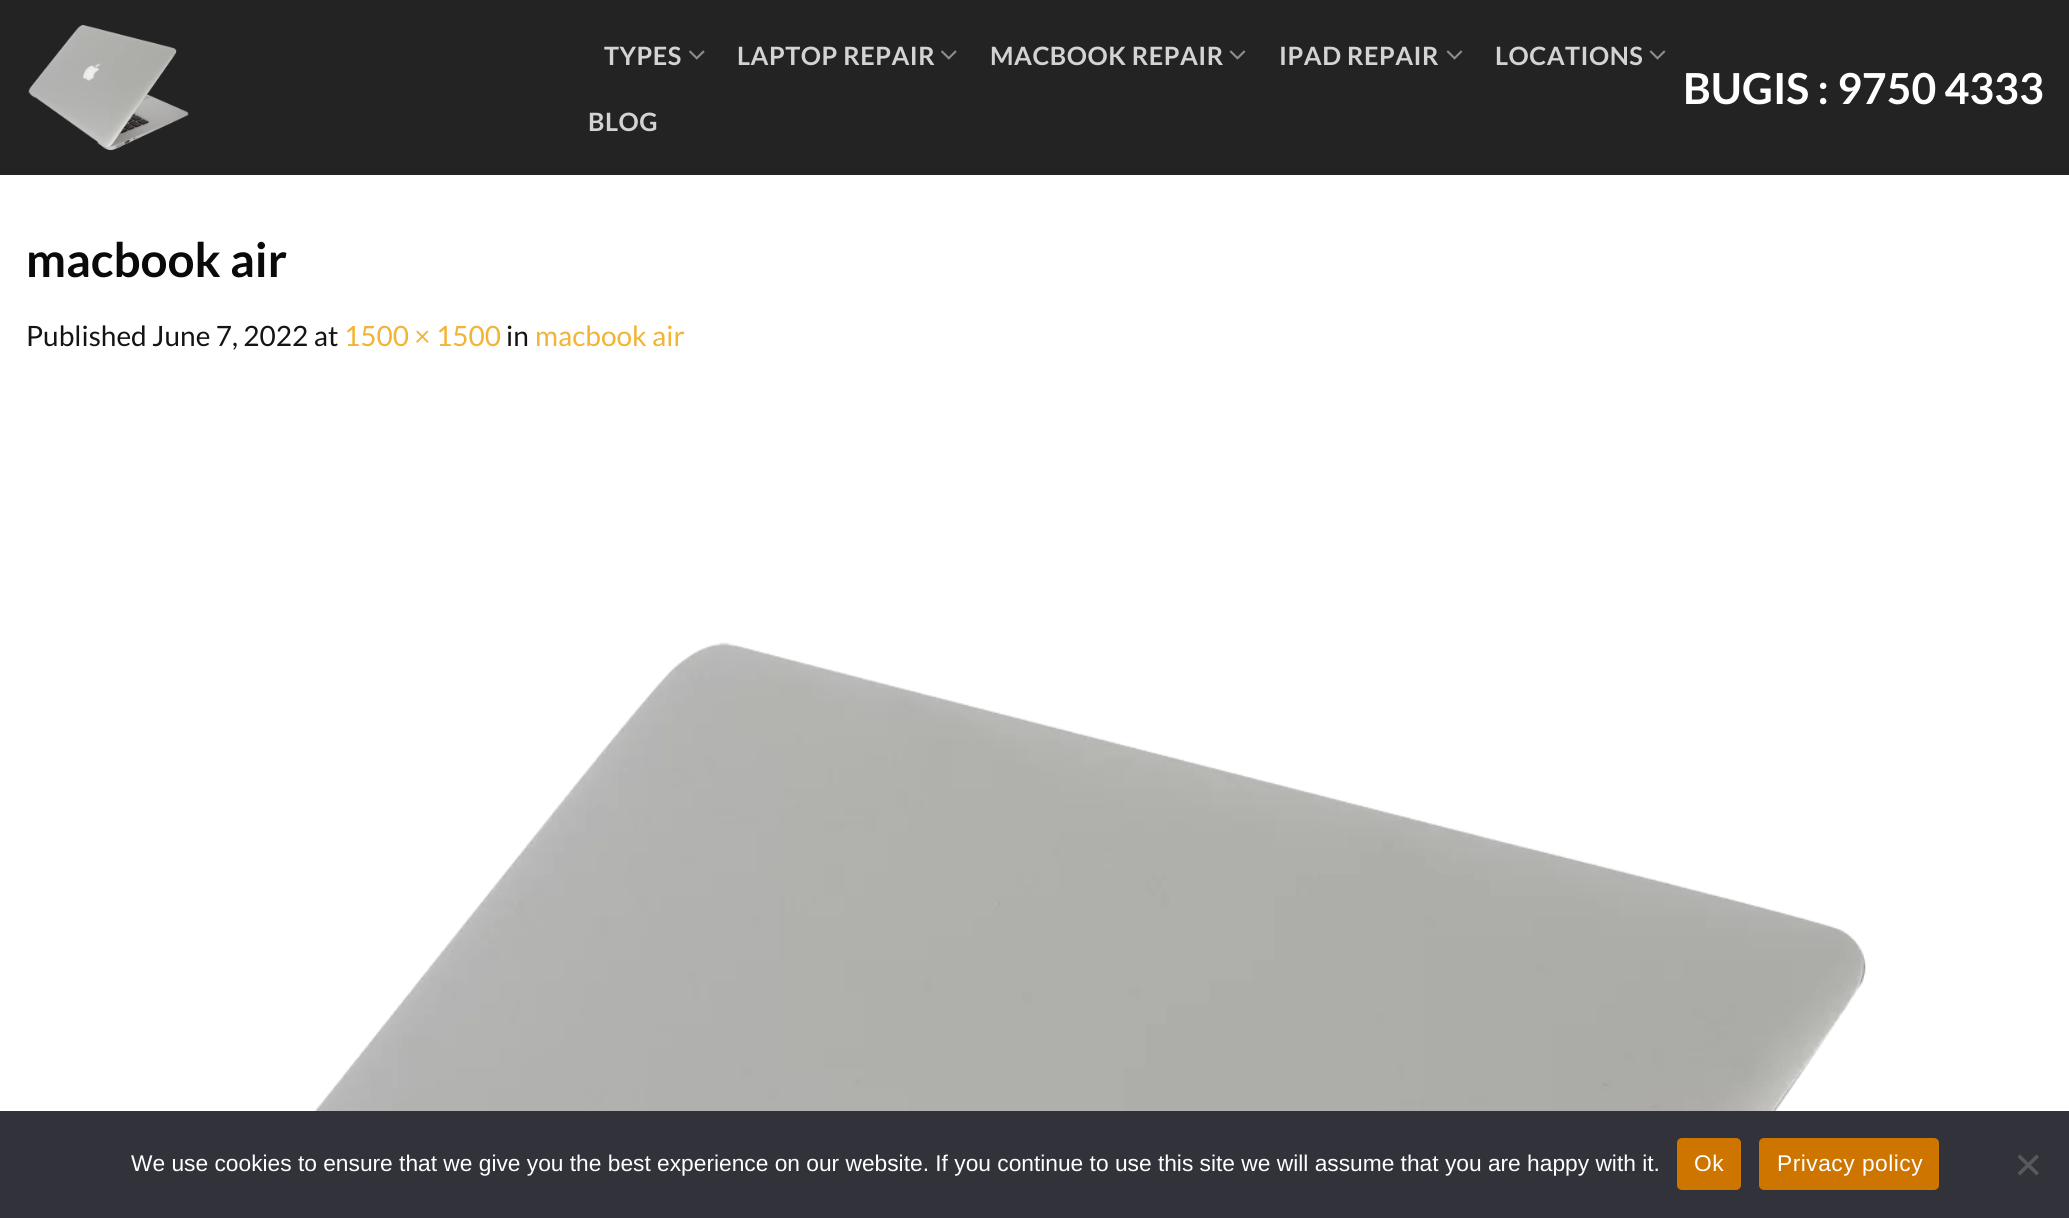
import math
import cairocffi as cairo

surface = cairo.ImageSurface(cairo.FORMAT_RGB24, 2069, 1218)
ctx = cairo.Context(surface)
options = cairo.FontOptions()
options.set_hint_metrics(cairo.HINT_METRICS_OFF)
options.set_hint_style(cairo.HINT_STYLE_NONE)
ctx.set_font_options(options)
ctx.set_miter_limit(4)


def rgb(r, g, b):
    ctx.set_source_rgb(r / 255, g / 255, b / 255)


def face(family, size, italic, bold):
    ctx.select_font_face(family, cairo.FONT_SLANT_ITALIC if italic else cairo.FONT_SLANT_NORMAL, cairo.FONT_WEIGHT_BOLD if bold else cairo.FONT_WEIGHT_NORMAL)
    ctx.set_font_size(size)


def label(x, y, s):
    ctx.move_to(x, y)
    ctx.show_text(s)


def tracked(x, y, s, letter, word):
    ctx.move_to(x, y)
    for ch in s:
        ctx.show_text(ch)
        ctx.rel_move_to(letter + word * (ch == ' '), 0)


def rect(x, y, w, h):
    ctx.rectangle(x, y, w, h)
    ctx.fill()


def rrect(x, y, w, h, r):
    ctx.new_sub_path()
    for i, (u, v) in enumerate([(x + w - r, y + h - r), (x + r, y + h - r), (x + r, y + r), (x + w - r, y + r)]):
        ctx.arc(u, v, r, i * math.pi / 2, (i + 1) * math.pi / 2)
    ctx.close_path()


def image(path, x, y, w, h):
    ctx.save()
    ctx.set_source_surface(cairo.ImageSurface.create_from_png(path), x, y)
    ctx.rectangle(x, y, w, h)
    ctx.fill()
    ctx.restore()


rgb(255, 255, 255)
ctx.paint()
rgb(35, 35, 35)
rect(0, 0, 2069, 175)
image('image0.png', 28, 25, 161, 126)
face('Lato', 25.25, 0, 1)
rgb(211, 211, 211)
tracked(604, 65, 'TYPES', 0.5, 0)
image('image1.png', 689, 50, 16, 10)
tracked(737, 65, 'LAPTOP REPAIR', 0.5, 0)
image('image1.png', 941, 50, 16, 10)
tracked(990, 65, 'MACBOOK REPAIR', 0.5, 0)
image('image2.png', 1229, 50, 17, 10)
tracked(1279, 65, 'IPAD REPAIR', 0.5, 0)
image('image2.png', 1446, 50, 17, 10)
tracked(1495, 65, 'LOCATIONS', 0.5, 0)
image('image2.png', 1649, 50, 17, 10)
tracked(588, 131, 'BLOG', 0.5, 0)
face('Lato', 42.75, 0, 1)
rgb(255, 255, 255)
label(1683, 104, 'BUGIS : 9750 4333')
face('Lato', 47.5, 0, 1)
rgb(10, 10, 10)
label(26, 277, 'macbook air')
face('Lato', 28, 0, 0)
rgb(20, 20, 20)
label(26, 346, 'Published June 7, 2022 at')
rgb(243, 179, 51)
label(344, 346, '1500 × 1500')
rgb(20, 20, 20)
label(506, 346, 'in')
rgb(243, 179, 51)
label(535, 346, 'macbook air')
image('image3.png', 314, 642, 1553, 469)
rgb(50, 50, 58)
rect(0, 1111, 2069, 107)
face('Liberation Sans', 22.75, 0, 0)
rgb(255, 255, 255)
label(131, 1171, 'We use cookies to ensure that we give you the best experience on our website. If you continue to use this site we will assume that you are happy with it.')
rgb(206, 117, 0)
rrect(1677, 1138, 64, 52, 5)
ctx.fill()
rgb(255, 255, 255)
tracked(1694, 1171, 'Ok', 0.5, 0)
rgb(206, 117, 0)
rrect(1759, 1138, 180, 52, 5)
ctx.fill()
rgb(255, 255, 255)
tracked(1777, 1171, 'Privacy policy', 0.5, 0)
rgb(89, 89, 93)
ctx.new_path()
ctx.move_to(2036.5, 1154.5)
ctx.line_to(2039, 1157)
ctx.line_to(2020, 1175.5)
ctx.line_to(2017.5, 1173)
ctx.close_path()
ctx.fill()
ctx.new_path()
ctx.move_to(2017.5, 1157)
ctx.line_to(2020, 1154.5)
ctx.line_to(2039, 1173)
ctx.line_to(2036.5, 1175.5)
ctx.close_path()
ctx.fill()
surface.write_to_png('render.png')
